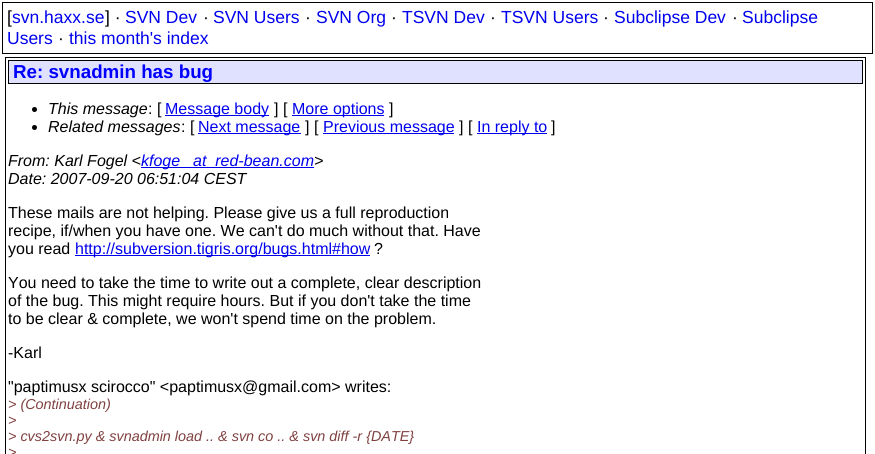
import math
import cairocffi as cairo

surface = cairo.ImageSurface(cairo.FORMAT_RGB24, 875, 454)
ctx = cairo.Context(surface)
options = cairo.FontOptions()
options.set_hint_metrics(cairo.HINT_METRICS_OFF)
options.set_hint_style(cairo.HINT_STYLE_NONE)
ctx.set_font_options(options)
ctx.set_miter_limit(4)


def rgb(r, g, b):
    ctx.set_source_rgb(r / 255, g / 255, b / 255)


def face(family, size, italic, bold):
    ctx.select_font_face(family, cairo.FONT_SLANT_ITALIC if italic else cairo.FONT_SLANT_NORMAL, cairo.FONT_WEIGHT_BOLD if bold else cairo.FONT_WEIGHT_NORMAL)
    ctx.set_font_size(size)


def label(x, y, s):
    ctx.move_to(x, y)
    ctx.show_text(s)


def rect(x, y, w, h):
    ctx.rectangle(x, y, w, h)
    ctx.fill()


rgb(255, 255, 255)
ctx.paint()
ctx.rectangle(2.5, 2.5, 870, 51)
rgb(0, 0, 0)
ctx.set_line_width(1)
ctx.stroke()
face('Liberation Sans', 17.5, 0, 0)
label(7, 23, '[')
rgb(0, 0, 238)
label(12, 23, 'svn.haxx.se')
rgb(0, 0, 0)
label(105, 23, '] ·')
rgb(0, 0, 238)
label(125, 23, 'SVN Dev')
rgb(0, 0, 0)
label(203, 23, '·')
rgb(0, 0, 238)
label(213, 23, 'SVN Users')
rgb(0, 0, 0)
label(305, 23, '·')
rgb(0, 0, 238)
label(316, 23, 'SVN Org')
rgb(0, 0, 0)
label(391, 23, '·')
rgb(0, 0, 238)
label(402, 23, 'TSVN Dev')
rgb(0, 0, 0)
label(490, 23, '·')
rgb(0, 0, 238)
label(501, 23, 'TSVN Users')
rgb(0, 0, 0)
label(603, 23, '·')
rgb(0, 0, 238)
label(614, 23, 'Subclipse Dev')
rgb(0, 0, 0)
label(732, 23, '·')
rgb(0, 0, 238)
label(742, 23, 'Subclipse')
label(7, 44, 'Users')
rgb(0, 0, 0)
label(58, 44, '·')
rgb(0, 0, 238)
label(69, 44, 'this month\'s index')
ctx.rectangle(5.5, 57.5, 860, 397)
rgb(0, 0, 0)
ctx.stroke()
rgb(224, 224, 255)
ctx.rectangle(8.5, 60.5, 854, 23)
ctx.fill_preserve()
rgb(0, 0, 0)
ctx.stroke()
face('Liberation Sans', 18.75, 0, 1)
rgb(0, 0, 255)
label(13, 78, 'Re: svnadmin has bug')
rgb(0, 0, 0)
ctx.new_path()
ctx.arc(34.5, 109.5, 2.5, 0, 2 * math.pi)
ctx.fill()
face('Liberation Sans', 16, 1, 0)
label(48, 114, 'This message')
face('Liberation Sans', 16, 0, 0)
label(148, 114, ': [')
rgb(0, 0, 238)
rect(165, 115, 104, 1)
label(165, 114, 'Message body')
rgb(0, 0, 0)
label(274, 114, '] [')
rgb(0, 0, 238)
rect(292, 115, 92, 1)
label(292, 114, 'More options')
rgb(0, 0, 0)
label(389, 114, ']')
ctx.new_path()
ctx.arc(34.5, 127.5, 2.5, 0, 2 * math.pi)
ctx.fill()
face('Liberation Sans', 16, 1, 0)
label(48, 132, 'Related messages')
face('Liberation Sans', 16, 0, 0)
label(181, 132, ': [')
rgb(0, 0, 238)
rect(198, 133, 103, 1)
label(198, 132, 'Next message')
rgb(0, 0, 0)
label(305, 132, '] [')
rgb(0, 0, 238)
rect(323, 133, 131, 1)
label(323, 132, 'Previous message')
rgb(0, 0, 0)
label(459, 132, '] [')
rgb(0, 0, 238)
rect(477, 133, 70, 1)
label(477, 132, 'In reply to')
rgb(0, 0, 0)
label(551, 132, ']')
face('Liberation Sans', 16, 1, 0)
label(8, 166, 'From: Karl Fogel <')
rgb(0, 0, 238)
rect(141, 167, 173, 1)
label(141, 166, 'kfoge')
label(193, 166, 'at_red-bean.com')
rgb(0, 0, 0)
label(314, 166, '>')
label(8, 184, 'Date: 2007-09-20 06:51:04 CEST')
face('Liberation Sans', 16, 0, 0)
label(8, 218, 'These mails are not helping. Please give us a full reproduction')
label(8, 236, 'recipe, if/when you have one. We can\'t do much without that. Have')
label(8, 254, 'you read')
rgb(0, 0, 238)
rect(75, 255, 295, 1)
label(75, 254, 'http://subversion.tigris.org/bugs.html#how')
rgb(0, 0, 0)
label(374, 254, '?')
label(8, 288, 'You need to take the time to write out a complete, clear description')
label(8, 306, 'of the bug. This might require hours. But if you don\'t take the time')
label(8, 324, 'to be clear & complete, we won\'t spend time on the problem.')
label(8, 358, '-Karl')
label(8, 392, '"paptimusx scirocco" <paptimusx@gmail.com> writes:')
face('Liberation Sans', 14.4, 1, 0)
rgb(128, 64, 64)
label(8, 409, '> (Continuation)')
label(8, 425, '>')
label(8, 441, '> cvs2svn.py & svnadmin load .. & svn co .. & svn diff -r {DATE}')
label(8, 457, '>')
surface.write_to_png('render.png')
